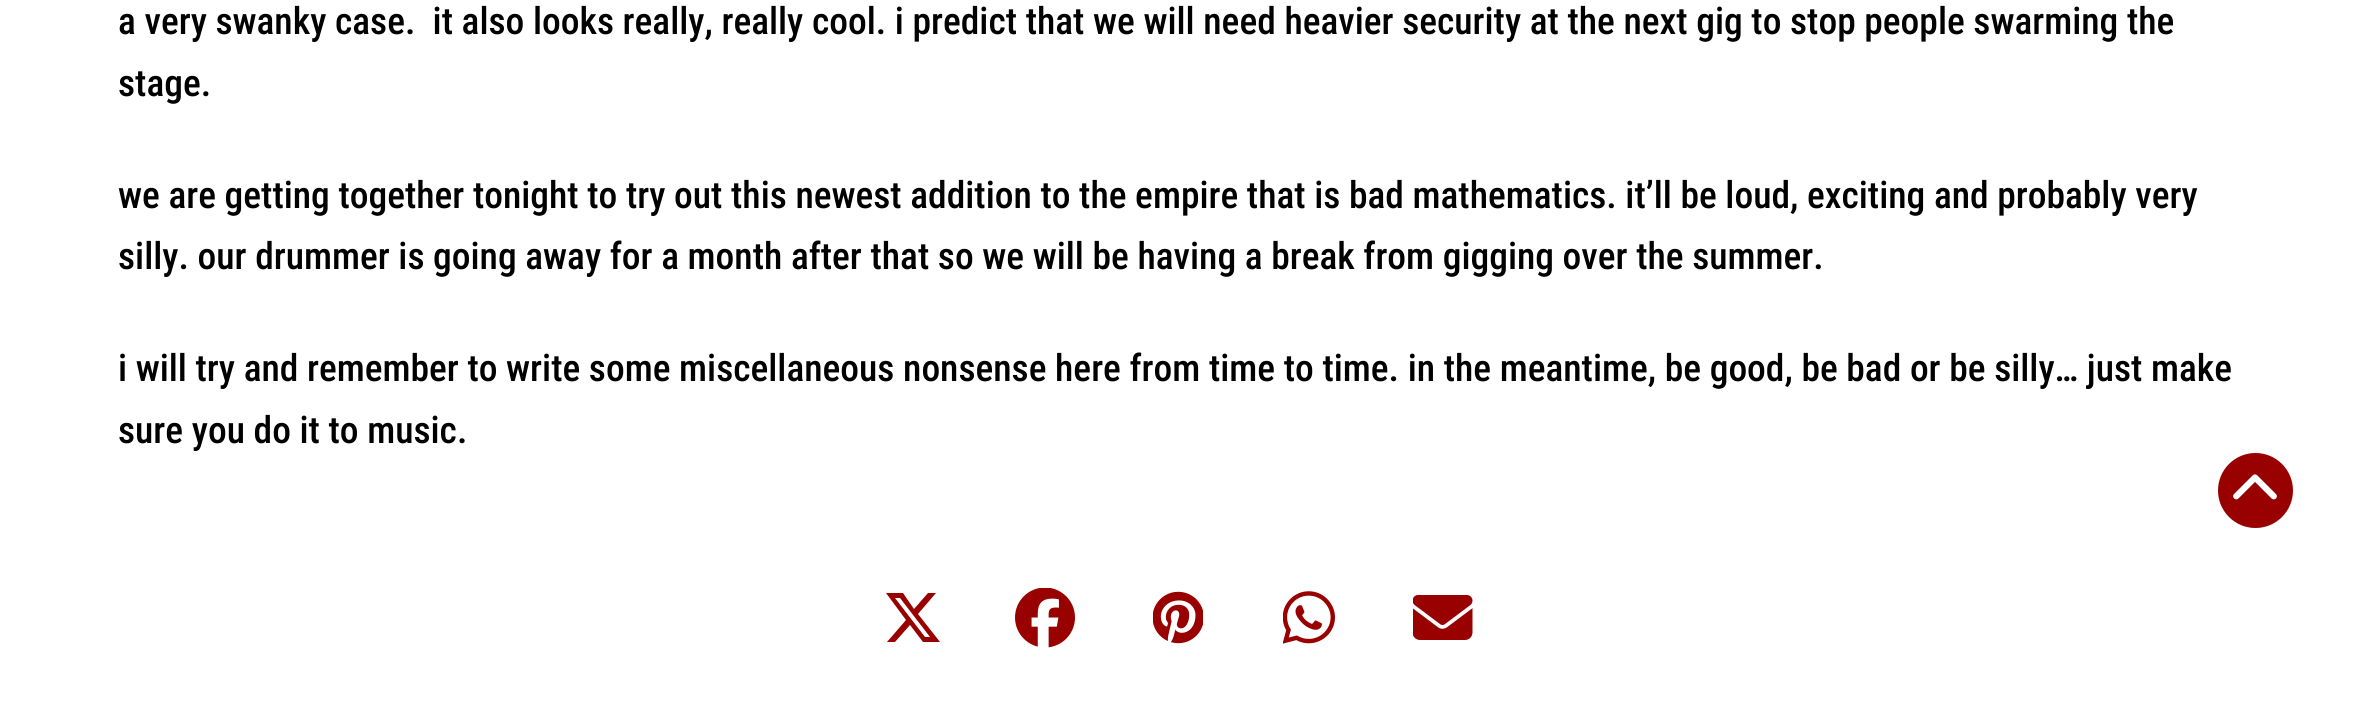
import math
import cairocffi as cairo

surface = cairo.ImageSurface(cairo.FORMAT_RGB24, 2353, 727)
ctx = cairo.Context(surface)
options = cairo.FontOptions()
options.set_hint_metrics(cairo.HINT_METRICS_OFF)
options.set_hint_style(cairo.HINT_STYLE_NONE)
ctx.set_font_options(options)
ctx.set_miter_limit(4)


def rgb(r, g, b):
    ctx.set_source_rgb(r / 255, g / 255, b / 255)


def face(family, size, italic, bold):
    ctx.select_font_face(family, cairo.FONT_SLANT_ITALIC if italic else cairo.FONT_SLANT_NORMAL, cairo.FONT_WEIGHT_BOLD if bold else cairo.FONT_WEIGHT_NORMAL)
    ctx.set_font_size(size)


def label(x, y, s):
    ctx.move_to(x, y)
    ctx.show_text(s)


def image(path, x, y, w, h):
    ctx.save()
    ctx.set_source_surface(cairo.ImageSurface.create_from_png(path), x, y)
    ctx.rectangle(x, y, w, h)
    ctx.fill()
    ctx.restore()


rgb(255, 255, 255)
ctx.paint()
face('Roboto Condensed Medium', 37.5, 0, 0)
rgb(0, 0, 0)
label(118, 34, 'a very swanky case.  it also looks really, really cool. i predict that we will need heavier security at the next gig to stop people swarming the')
label(118, 96, 'stage.')
label(118, 208, 'we are getting together tonight to try out this newest addition to the empire that is bad mathematics. it’ll be loud, exciting and probably very')
label(118, 269, 'silly. our drummer is going away for a month after that so we will be having a break from gigging over the summer.')
label(118, 381, 'i will try and remember to write some miscellaneous nonsense here from time to time. in the meantime, be good, be bad or be silly… just make')
label(118, 443, 'sure you do it to music.')
rgb(153, 0, 0)
ctx.new_path()
ctx.move_to(928, 593)
ctx.line_to(936, 593)
ctx.line_to(918, 614)
ctx.line_to(940, 642)
ctx.line_to(923, 642)
ctx.line_to(910, 625)
ctx.line_to(895, 642)
ctx.line_to(887, 642)
ctx.line_to(906, 620)
ctx.line_to(886, 593)
ctx.line_to(903, 593)
ctx.line_to(914, 609)
ctx.close_path()
ctx.move_to(925, 637)
ctx.line_to(930, 637)
ctx.line_to(900, 598)
ctx.line_to(895, 598)
ctx.close_path()
ctx.fill()
image('image0.png', 1015, 588, 60, 60)
image('image1.png', 1153, 591, 50, 53)
image('image2.png', 1283, 591, 52, 53)
image('image3.png', 1413, 595, 60, 45)
ctx.arc(2255.5, 490.5, 37.5, 0, 2 * math.pi)
ctx.fill()
image('image4.png', 2233, 474, 44, 26)
surface.write_to_png('render.png')
